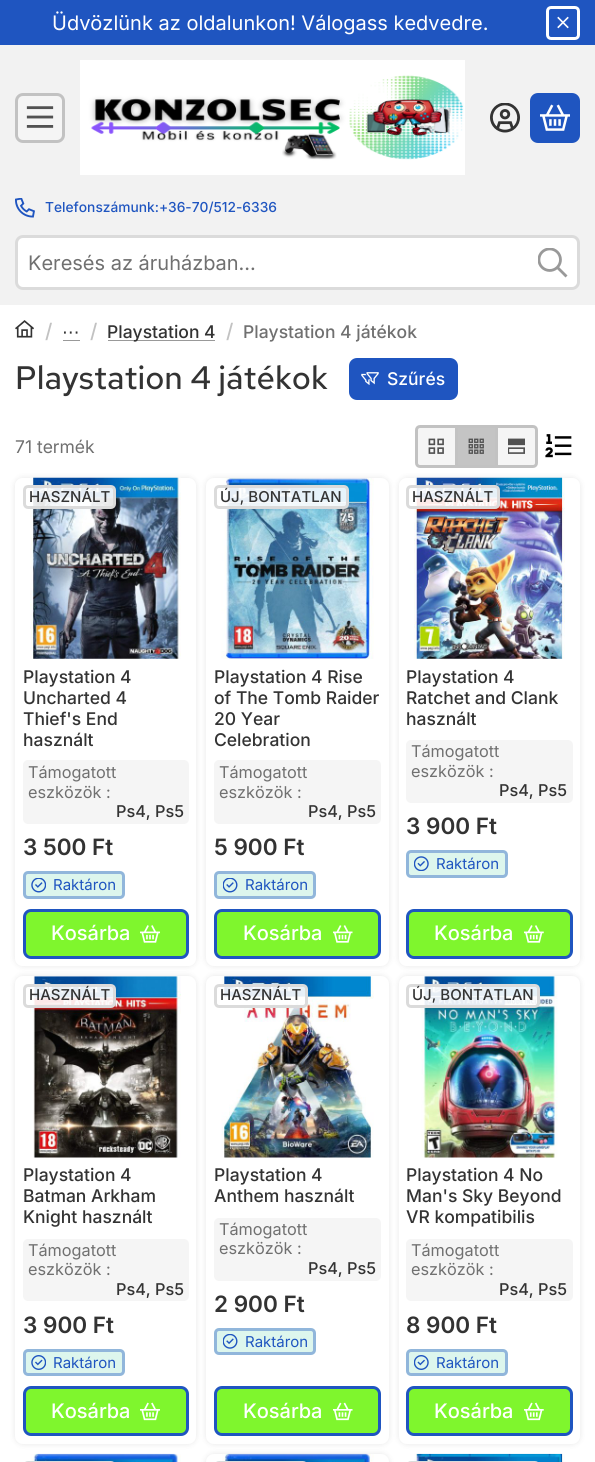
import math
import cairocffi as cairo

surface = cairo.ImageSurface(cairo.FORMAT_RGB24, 595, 1462)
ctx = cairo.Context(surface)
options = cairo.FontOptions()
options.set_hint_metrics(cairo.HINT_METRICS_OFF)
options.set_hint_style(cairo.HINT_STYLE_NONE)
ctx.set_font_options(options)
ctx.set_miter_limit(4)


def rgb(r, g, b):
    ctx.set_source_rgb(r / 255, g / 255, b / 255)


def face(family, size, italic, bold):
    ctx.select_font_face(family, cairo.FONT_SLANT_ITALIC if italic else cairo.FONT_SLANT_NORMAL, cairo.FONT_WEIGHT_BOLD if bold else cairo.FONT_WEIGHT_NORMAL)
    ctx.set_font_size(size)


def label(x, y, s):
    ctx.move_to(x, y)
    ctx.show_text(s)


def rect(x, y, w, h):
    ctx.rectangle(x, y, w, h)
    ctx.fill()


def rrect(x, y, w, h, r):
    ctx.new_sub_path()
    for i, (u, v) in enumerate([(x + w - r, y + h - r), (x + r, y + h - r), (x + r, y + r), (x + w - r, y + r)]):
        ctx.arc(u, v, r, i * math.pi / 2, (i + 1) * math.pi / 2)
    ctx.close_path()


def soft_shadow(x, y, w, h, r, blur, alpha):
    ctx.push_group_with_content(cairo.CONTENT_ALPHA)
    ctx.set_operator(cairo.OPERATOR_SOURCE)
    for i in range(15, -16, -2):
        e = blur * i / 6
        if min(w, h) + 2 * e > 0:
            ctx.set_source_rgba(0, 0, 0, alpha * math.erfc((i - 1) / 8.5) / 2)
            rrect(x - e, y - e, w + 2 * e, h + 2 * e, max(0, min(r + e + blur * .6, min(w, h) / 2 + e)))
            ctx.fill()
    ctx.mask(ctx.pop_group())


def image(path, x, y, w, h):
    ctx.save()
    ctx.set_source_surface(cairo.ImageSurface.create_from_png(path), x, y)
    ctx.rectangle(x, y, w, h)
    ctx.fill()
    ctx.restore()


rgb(255, 255, 255)
ctx.paint()
rgb(31, 85, 192)
rect(0, 0, 595, 45)
face('Inter', 20, 0, 0)
rgb(255, 255, 255)
label(52, 30, 'Üdvözlünk az oldalunkon! Válogass kedvedre.')
rrect(547.5, 7.5, 31, 31, 3.5)
ctx.set_line_width(3)
ctx.stroke()
image('image0.png', 557, 16, 12, 13)
rgb(242, 242, 242)
rect(0, 45, 595, 260)
rgb(245, 245, 245)
rrect(16.5, 94.5, 47, 47, 6.5)
ctx.fill_preserve()
rgb(194, 194, 194)
ctx.stroke()
image('image1.png', 26, 106, 28, 22)
image('image2.png', 80, 60, 385, 115)
image('image3.png', 490, 103, 30, 30)
rgb(31, 85, 192)
rrect(531.5, 94.5, 47, 47, 6.5)
ctx.fill_preserve()
ctx.stroke()
image('image4.png', 540, 104, 30, 27)
image('image5.png', 15, 198, 20, 20)
face('Inter Medium', 13.75, 0, 0)
label(45, 212, 'Telefonszámunk:+36-70/512-6336')
rgb(255, 255, 255)
rrect(16.5, 236.5, 562, 52, 6.5)
ctx.fill_preserve()
rgb(219, 219, 219)
ctx.stroke()
face('Inter', 20, 0, 0)
rgb(112, 112, 112)
label(28, 270, 'Keresés az áruházban...')
image('image6.png', 538, 248, 30, 30)
image('image7.png', 15, 320, 19, 18)
face('Inter Medium', 20, 0, 0)
rgb(194, 194, 194)
label(45, 338, '/')
face('DejaVu Sans', 17.5, 0, 0)
rgb(51, 51, 51)
label(62, 338, '⋯')
rgb(153, 153, 153)
rect(63, 340, 17, 1)
face('Inter Medium', 20, 0, 0)
rgb(194, 194, 194)
label(90, 338, '/')
rgb(153, 153, 153)
rect(108, 340, 107, 1)
face('Inter Medium', 17.5, 0, 0)
rgb(51, 51, 51)
label(107, 338, 'Playstation 4')
face('Inter Medium', 20, 0, 0)
rgb(194, 194, 194)
label(226, 338, '/')
face('Inter Medium', 17.5, 0, 0)
rgb(112, 112, 112)
label(243, 338, 'Playstation 4 játékok')
face('Red Hat Text Medium', 32.5, 0, 0)
rgb(51, 51, 51)
label(15, 389, 'Playstation 4 játékok')
rgb(31, 85, 192)
rrect(350.5, 359.5, 106, 39, 6.5)
ctx.fill_preserve()
ctx.stroke()
image('image8.png', 361, 372, 18, 13)
face('Inter Medium', 17.5, 0, 0)
rgb(255, 255, 255)
label(387, 385, 'Szűrés')
face('Inter', 17.5, 0, 0)
rgb(112, 112, 112)
label(15, 453, '71 termék')
rgb(245, 245, 245)
ctx.new_path()
ctx.move_to(420, 426.5)
ctx.line_to(456.5, 426.5)
ctx.line_to(456.5, 466.5)
ctx.line_to(420, 466.5)
ctx.curve_to(418, 466.5, 416.5, 465, 416.5, 463)
ctx.line_to(416.5, 430)
ctx.curve_to(416.5, 428, 418, 426.5, 420, 426.5)
ctx.close_path()
ctx.fill_preserve()
rgb(194, 194, 194)
ctx.stroke()
image('image9.png', 428, 438, 16, 16)
rgb(245, 245, 245)
ctx.new_path()
ctx.move_to(496.5, 426.5)
ctx.line_to(533, 426.5)
ctx.curve_to(535, 426.5, 536.5, 428, 536.5, 430)
ctx.line_to(536.5, 463)
ctx.curve_to(536.5, 465, 535, 466.5, 533, 466.5)
ctx.line_to(496.5, 466.5)
ctx.close_path()
ctx.fill_preserve()
rgb(194, 194, 194)
ctx.stroke()
rgb(196, 196, 196)
ctx.rectangle(456.5, 426.5, 40, 40)
ctx.fill_preserve()
rgb(194, 194, 194)
ctx.stroke()
image('image10.png', 468, 438, 16, 16)
image('image11.png', 508, 438, 17, 16)
image('image12.png', 545, 434, 27, 24)
ctx.save()
ctx.set_fill_rule(cairo.FILL_RULE_EVEN_ODD)
ctx.new_path()
ctx.move_to(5, 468)
ctx.line_to(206, 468)
ctx.line_to(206, 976)
ctx.line_to(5, 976)
ctx.close_path()
ctx.move_to(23, 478)
ctx.line_to(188, 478)
ctx.curve_to(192.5, 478, 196, 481.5, 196, 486)
ctx.line_to(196, 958)
ctx.curve_to(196, 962.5, 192.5, 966, 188, 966)
ctx.line_to(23, 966)
ctx.curve_to(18.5, 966, 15, 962.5, 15, 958)
ctx.line_to(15, 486)
ctx.curve_to(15, 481.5, 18.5, 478, 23, 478)
ctx.close_path()
ctx.clip()
rgb(0, 0, 0)
soft_shadow(15, 478, 181, 488, 8, 3, 0.1)
ctx.restore()
image('image13.png', 30, 477, 151, 182)
ctx.set_source_rgba(1, 1, 1, 0.9)
rrect(24.5, 486.5, 90, 21, 3.5)
ctx.fill_preserve()
rgb(219, 219, 219)
ctx.stroke()
face('Inter Medium', 15, 0, 0)
rgb(51, 51, 51)
label(29, 502, 'HASZNÁLT')
face('Inter Medium', 17.5, 0, 0)
label(23, 683, 'Playstation 4')
label(23, 704, 'Uncharted 4')
label(23, 725, 'Thief\'s End')
label(23, 746, 'használt')
rgb(245, 245, 245)
rrect(23, 760, 166, 64, 5)
ctx.fill()
face('Inter', 16.25, 0, 0)
rgb(112, 112, 112)
label(28, 778, 'Támogatott')
label(28, 798, 'eszközök :')
face('Inter Medium', 16.25, 0, 0)
rgb(51, 51, 51)
label(116, 817, 'Ps4, Ps5')
face('Inter SemiBold', 22.5, 0, 0)
label(23, 855, '3 500 Ft')
rgb(221, 246, 237)
rrect(23, 871, 102, 28, 5)
ctx.fill()
rrect(24.5, 872.5, 99, 25, 3.5)
ctx.set_source_rgba(0.122, 0.333, 0.753, 0.4)
ctx.stroke()
image('image14.png', 31, 878, 15, 15)
face('Inter', 15, 0, 0)
rgb(31, 85, 192)
label(53, 890, 'Raktáron')
rgb(127, 246, 45)
rrect(24.5, 910.5, 163, 47, 6.5)
ctx.fill_preserve()
rgb(31, 85, 192)
ctx.stroke()
face('Inter Medium', 20, 0, 0)
rgb(255, 255, 255)
label(51, 940, 'Kosárba')
image('image15.png', 140, 925, 20, 18)
rgb(0, 0, 0)
soft_shadow(206, 478, 183, 488, 8, 3, 0.1)
rgb(255, 255, 255)
rrect(206, 478, 183, 488, 8)
ctx.fill()
image('image16.png', 221, 478, 153, 181)
ctx.set_source_rgba(1, 1, 1, 0.9)
rrect(215.5, 486.5, 132, 21, 3.5)
ctx.fill_preserve()
rgb(219, 219, 219)
ctx.stroke()
face('Inter Medium', 15, 0, 0)
rgb(51, 51, 51)
label(220, 502, 'ÚJ, BONTATLAN')
face('Inter Medium', 17.5, 0, 0)
label(214, 683, 'Playstation 4 Rise')
label(214, 704, 'of The Tomb Raider')
label(214, 725, '20 Year')
label(214, 746, 'Celebration')
rgb(245, 245, 245)
rrect(214, 760, 167, 64, 5)
ctx.fill()
face('Inter', 16.25, 0, 0)
rgb(112, 112, 112)
label(219, 778, 'Támogatott')
label(219, 798, 'eszközök :')
face('Inter Medium', 16.25, 0, 0)
rgb(51, 51, 51)
label(308, 817, 'Ps4, Ps5')
face('Inter SemiBold', 22.5, 0, 0)
label(214, 855, '5 900 Ft')
rgb(221, 246, 237)
rrect(214, 871, 102, 28, 5)
ctx.fill()
rrect(215.5, 872.5, 99, 25, 3.5)
ctx.set_source_rgba(0.122, 0.333, 0.753, 0.4)
ctx.stroke()
image('image17.png', 223, 878, 15, 15)
face('Inter', 15, 0, 0)
rgb(31, 85, 192)
label(245, 890, 'Raktáron')
rgb(127, 246, 45)
rrect(215.5, 910.5, 164, 47, 6.5)
ctx.fill_preserve()
rgb(31, 85, 192)
ctx.stroke()
face('Inter Medium', 20, 0, 0)
rgb(255, 255, 255)
label(243, 940, 'Kosárba')
image('image18.png', 333, 925, 20, 18)
ctx.save()
ctx.set_fill_rule(cairo.FILL_RULE_EVEN_ODD)
ctx.new_path()
ctx.move_to(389, 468)
ctx.line_to(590, 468)
ctx.line_to(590, 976)
ctx.line_to(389, 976)
ctx.close_path()
ctx.move_to(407, 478)
ctx.line_to(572, 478)
ctx.curve_to(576.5, 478, 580, 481.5, 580, 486)
ctx.line_to(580, 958)
ctx.curve_to(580, 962.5, 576.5, 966, 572, 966)
ctx.line_to(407, 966)
ctx.curve_to(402.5, 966, 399, 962.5, 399, 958)
ctx.line_to(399, 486)
ctx.curve_to(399, 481.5, 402.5, 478, 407, 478)
ctx.close_path()
ctx.clip()
rgb(0, 0, 0)
soft_shadow(399, 478, 181, 488, 8, 3, 0.1)
ctx.restore()
image('image19.png', 414, 477, 151, 182)
ctx.set_source_rgba(1, 1, 1, 0.9)
rrect(407.5, 486.5, 91, 21, 3.5)
ctx.fill_preserve()
rgb(219, 219, 219)
ctx.stroke()
face('Inter Medium', 15, 0, 0)
rgb(51, 51, 51)
label(412, 502, 'HASZNÁLT')
face('Inter Medium', 17.5, 0, 0)
label(406, 683, 'Playstation 4')
label(406, 704, 'Ratchet and Clank')
label(406, 725, 'használt')
rgb(245, 245, 245)
rrect(406, 740, 167, 63, 5)
ctx.fill()
face('Inter', 16.25, 0, 0)
rgb(112, 112, 112)
label(411, 757, 'Támogatott')
label(411, 777, 'eszközök :')
face('Inter Medium', 16.25, 0, 0)
rgb(51, 51, 51)
label(499, 796, 'Ps4, Ps5')
face('Inter SemiBold', 22.5, 0, 0)
label(406, 834, '3 900 Ft')
rgb(221, 246, 237)
rrect(406, 850, 102, 28, 5)
ctx.fill()
rrect(407.5, 851.5, 99, 25, 3.5)
ctx.set_source_rgba(0.122, 0.333, 0.753, 0.4)
ctx.stroke()
image('image20.png', 414, 856, 15, 15)
face('Inter', 15, 0, 0)
rgb(31, 85, 192)
label(436, 869, 'Raktáron')
rgb(127, 246, 45)
rrect(407.5, 910.5, 164, 47, 6.5)
ctx.fill_preserve()
rgb(31, 85, 192)
ctx.stroke()
face('Inter Medium', 20, 0, 0)
rgb(255, 255, 255)
label(434, 940, 'Kosárba')
image('image21.png', 524, 925, 20, 18)
rgb(0, 0, 0)
soft_shadow(15, 976, 181, 468, 8, 3, 0.1)
rgb(255, 255, 255)
rrect(15, 976, 181, 468, 8)
ctx.fill()
image('image22.png', 30, 976, 151, 182)
ctx.set_source_rgba(1, 1, 1, 0.9)
rrect(24.5, 985.5, 90, 21, 3.5)
ctx.fill_preserve()
rgb(219, 219, 219)
ctx.stroke()
face('Inter Medium', 15, 0, 0)
rgb(51, 51, 51)
label(29, 1000, 'HASZNÁLT')
face('Inter Medium', 17.5, 0, 0)
label(23, 1181, 'Playstation 4')
label(23, 1202, 'Batman Arkham')
label(23, 1223, 'Knight használt')
rgb(245, 245, 245)
rrect(23, 1239, 166, 62, 5)
ctx.fill()
face('Inter', 16.25, 0, 0)
rgb(112, 112, 112)
label(28, 1256, 'Támogatott')
label(28, 1275, 'eszközök :')
face('Inter Medium', 16.25, 0, 0)
rgb(51, 51, 51)
label(116, 1295, 'Ps4, Ps5')
face('Inter SemiBold', 22.5, 0, 0)
label(23, 1333, '3 900 Ft')
rgb(221, 246, 237)
rrect(23, 1349, 102, 27, 5)
ctx.fill()
rrect(24.5, 1350.5, 99, 24, 3.5)
ctx.set_source_rgba(0.122, 0.333, 0.753, 0.4)
ctx.stroke()
image('image23.png', 31, 1355, 15, 15)
face('Inter', 15, 0, 0)
rgb(31, 85, 192)
label(53, 1368, 'Raktáron')
rgb(127, 246, 45)
rrect(24.5, 1387.5, 163, 47, 6.5)
ctx.fill_preserve()
rgb(31, 85, 192)
ctx.stroke()
face('Inter Medium', 20, 0, 0)
rgb(255, 255, 255)
label(51, 1418, 'Kosárba')
image('image24.png', 140, 1402, 20, 19)
rgb(0, 0, 0)
soft_shadow(206, 976, 183, 468, 8, 3, 0.1)
rgb(255, 255, 255)
rrect(206, 976, 183, 468, 8)
ctx.fill()
image('image25.png', 221, 976, 153, 182)
ctx.set_source_rgba(1, 1, 1, 0.9)
rrect(215.5, 985.5, 91, 21, 3.5)
ctx.fill_preserve()
rgb(219, 219, 219)
ctx.stroke()
face('Inter Medium', 15, 0, 0)
rgb(51, 51, 51)
label(220, 1000, 'HASZNÁLT')
face('Inter Medium', 17.5, 0, 0)
label(214, 1181, 'Playstation 4')
label(214, 1202, 'Anthem használt')
rgb(245, 245, 245)
rrect(214, 1218, 167, 63, 5)
ctx.fill()
face('Inter', 16.25, 0, 0)
rgb(112, 112, 112)
label(219, 1235, 'Támogatott')
label(219, 1254, 'eszközök :')
face('Inter Medium', 16.25, 0, 0)
rgb(51, 51, 51)
label(308, 1274, 'Ps4, Ps5')
face('Inter SemiBold', 22.5, 0, 0)
label(214, 1312, '2 900 Ft')
rgb(221, 246, 237)
rrect(214, 1328, 102, 27, 5)
ctx.fill()
rrect(215.5, 1329.5, 99, 24, 3.5)
ctx.set_source_rgba(0.122, 0.333, 0.753, 0.4)
ctx.stroke()
image('image26.png', 223, 1334, 15, 15)
face('Inter', 15, 0, 0)
rgb(31, 85, 192)
label(245, 1347, 'Raktáron')
rgb(127, 246, 45)
rrect(215.5, 1387.5, 164, 47, 6.5)
ctx.fill_preserve()
rgb(31, 85, 192)
ctx.stroke()
face('Inter Medium', 20, 0, 0)
rgb(255, 255, 255)
label(243, 1418, 'Kosárba')
image('image27.png', 333, 1402, 20, 19)
rgb(0, 0, 0)
soft_shadow(399, 976, 181, 468, 8, 3, 0.1)
rgb(255, 255, 255)
rrect(399, 976, 181, 468, 8)
ctx.fill()
image('image28.png', 421, 976, 137, 182)
ctx.set_source_rgba(1, 1, 1, 0.9)
rrect(407.5, 985.5, 131, 21, 3.5)
ctx.fill_preserve()
rgb(219, 219, 219)
ctx.stroke()
face('Inter Medium', 15, 0, 0)
rgb(51, 51, 51)
label(412, 1000, 'ÚJ, BONTATLAN')
face('Inter Medium', 17.5, 0, 0)
label(406, 1181, 'Playstation 4 No')
label(406, 1202, 'Man\'s Sky Beyond')
label(406, 1223, 'VR kompatibilis')
rgb(245, 245, 245)
rrect(406, 1239, 167, 62, 5)
ctx.fill()
face('Inter', 16.25, 0, 0)
rgb(112, 112, 112)
label(411, 1256, 'Támogatott')
label(411, 1275, 'eszközök :')
face('Inter Medium', 16.25, 0, 0)
rgb(51, 51, 51)
label(499, 1295, 'Ps4, Ps5')
face('Inter SemiBold', 22.5, 0, 0)
label(406, 1333, '8 900 Ft')
rgb(221, 246, 237)
rrect(406, 1349, 102, 27, 5)
ctx.fill()
rrect(407.5, 1350.5, 99, 24, 3.5)
ctx.set_source_rgba(0.122, 0.333, 0.753, 0.4)
ctx.stroke()
image('image29.png', 414, 1355, 15, 15)
face('Inter', 15, 0, 0)
rgb(31, 85, 192)
label(436, 1368, 'Raktáron')
rgb(127, 246, 45)
rrect(407.5, 1387.5, 164, 47, 6.5)
ctx.fill_preserve()
rgb(31, 85, 192)
ctx.stroke()
face('Inter Medium', 20, 0, 0)
rgb(255, 255, 255)
label(434, 1418, 'Kosárba')
image('image30.png', 524, 1402, 20, 19)
image('image31.png', 31, 1453, 150, 9)
rrect(24.5, 1462.5, 90, 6, 3.5)
rgb(219, 219, 219)
ctx.stroke()
rgb(0, 0, 0)
soft_shadow(206, 1454, 183, 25, 8, 3, 0.1)
rgb(255, 255, 255)
rrect(206, 1454, 183, 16, 8)
ctx.fill()
image('image32.png', 222, 1453, 152, 9)
rrect(215.5, 1462.5, 91, 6, 3.5)
rgb(219, 219, 219)
ctx.stroke()
image('image33.png', 414, 1453, 151, 9)
rrect(407.5, 1462.5, 131, 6, 3.5)
ctx.stroke()
surface.write_to_png('render.png')
